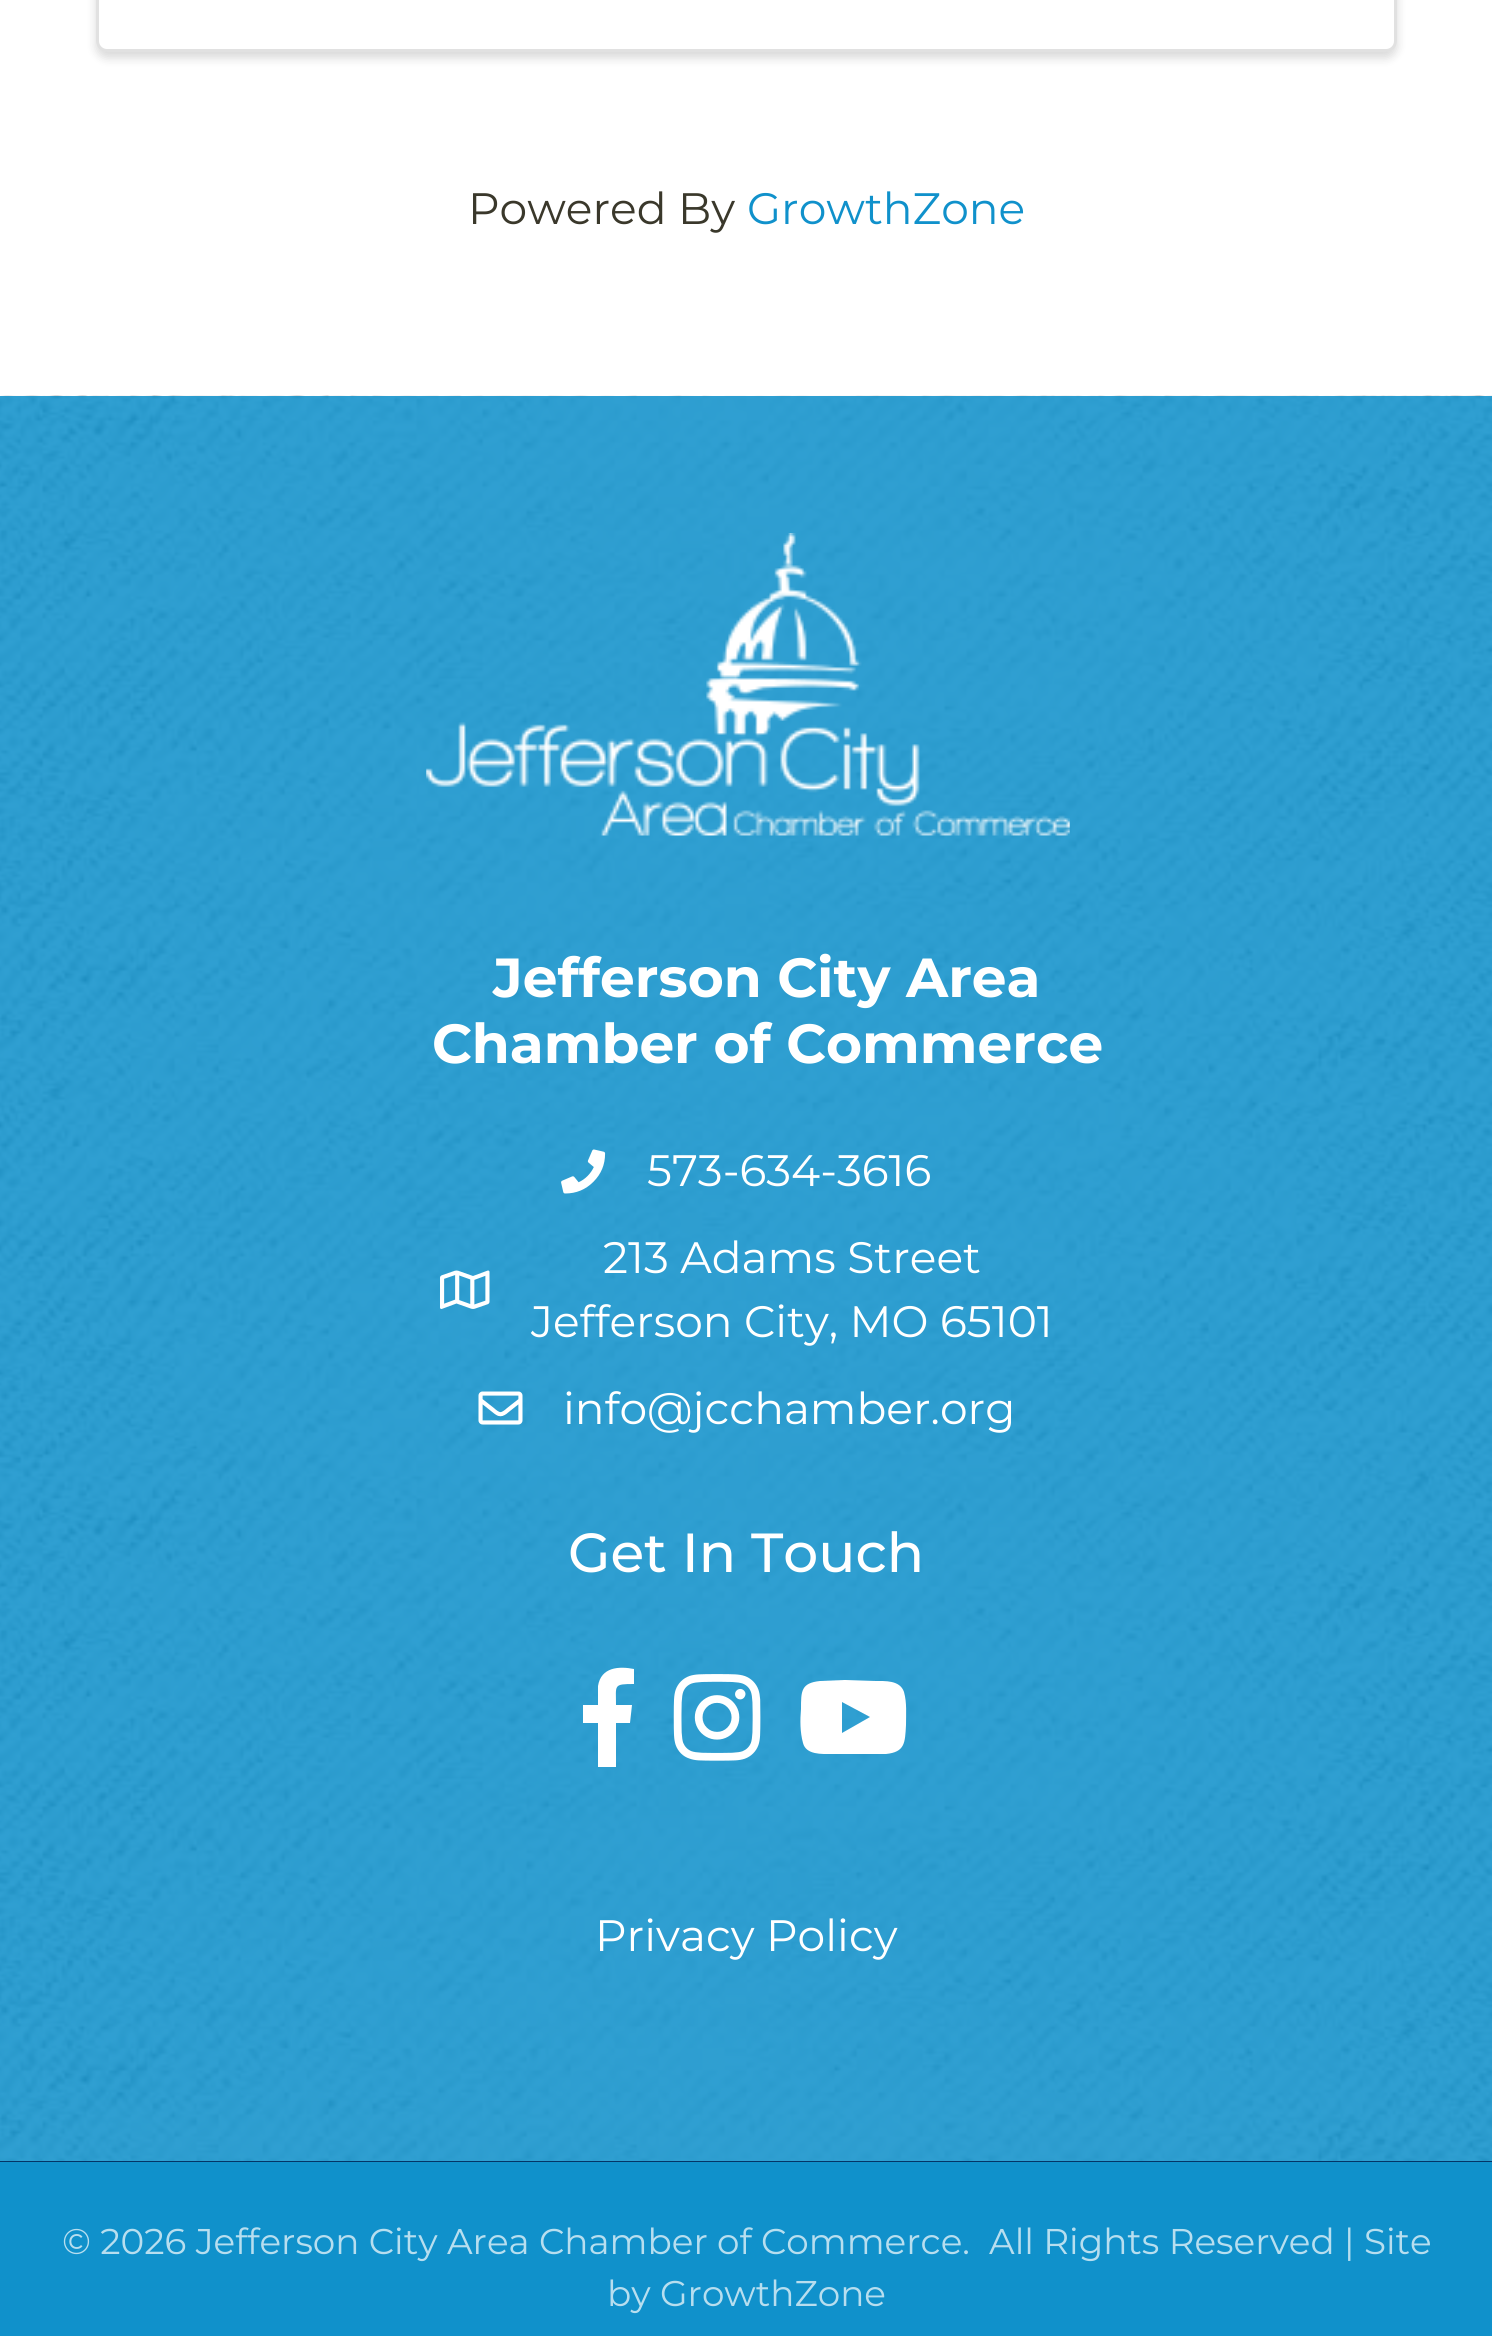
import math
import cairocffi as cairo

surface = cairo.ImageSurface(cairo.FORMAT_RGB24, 1492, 2336)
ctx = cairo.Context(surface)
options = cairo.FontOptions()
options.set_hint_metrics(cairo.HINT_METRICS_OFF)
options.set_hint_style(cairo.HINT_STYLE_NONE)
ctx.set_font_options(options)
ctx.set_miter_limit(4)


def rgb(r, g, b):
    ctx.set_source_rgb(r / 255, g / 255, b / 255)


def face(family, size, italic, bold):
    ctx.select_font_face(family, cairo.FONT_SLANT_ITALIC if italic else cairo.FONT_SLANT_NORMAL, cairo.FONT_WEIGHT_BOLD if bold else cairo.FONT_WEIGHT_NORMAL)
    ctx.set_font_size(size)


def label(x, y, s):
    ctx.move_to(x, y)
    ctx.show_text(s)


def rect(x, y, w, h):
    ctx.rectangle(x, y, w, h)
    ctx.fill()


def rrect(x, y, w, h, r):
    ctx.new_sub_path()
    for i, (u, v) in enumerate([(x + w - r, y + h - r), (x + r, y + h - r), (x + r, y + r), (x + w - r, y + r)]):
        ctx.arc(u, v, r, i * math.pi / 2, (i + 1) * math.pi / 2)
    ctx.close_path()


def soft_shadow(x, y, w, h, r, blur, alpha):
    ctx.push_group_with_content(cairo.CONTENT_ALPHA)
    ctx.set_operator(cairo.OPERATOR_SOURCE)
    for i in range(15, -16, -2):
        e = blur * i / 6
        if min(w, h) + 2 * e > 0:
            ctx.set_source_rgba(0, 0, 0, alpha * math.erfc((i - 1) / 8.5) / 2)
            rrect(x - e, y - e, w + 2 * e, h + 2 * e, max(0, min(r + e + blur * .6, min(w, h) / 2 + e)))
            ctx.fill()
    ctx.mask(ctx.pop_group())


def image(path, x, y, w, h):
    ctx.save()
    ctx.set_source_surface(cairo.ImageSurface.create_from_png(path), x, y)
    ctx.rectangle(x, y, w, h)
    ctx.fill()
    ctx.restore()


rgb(255, 255, 255)
ctx.paint()
rgb(0, 0, 0)
soft_shadow(96, -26, 1301, 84, 11, 5, 0.15)
rgb(255, 255, 255)
rrect(96, -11, 1301, 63, 11)
ctx.fill()
rrect(97.5, -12.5, 1298, 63, 9.5)
ctx.set_source_rgba(0, 0, 0, 0.12)
ctx.set_line_width(3)
ctx.stroke()
face('Montserrat', 44, 0, 0)
rgb(58, 56, 43)
label(468, 224, 'Powered By')
rgb(16, 145, 203)
label(747, 224, 'GrowthZone')
rgb(4, 53, 102)
rect(0, 2161, 1492, 1)
image('image0.png', 0, 395, 1492, 1766)
image('image1.png', 426, 533, 644, 303)
face('Montserrat', 55, 0, 1)
rgb(255, 255, 255)
label(493, 997, 'Jefferson City Area')
label(432, 1063, 'Chamber of Commerce')
image('image2.png', 561, 1149, 45, 45)
face('Montserrat', 44, 0, 0)
label(647, 1186, '573-634-3616')
image('image3.png', 440, 1270, 50, 39)
label(603, 1273, '213 Adams Street')
label(531, 1337, 'Jefferson City, MO 65101')
image('image4.png', 478, 1391, 45, 34)
label(563, 1424, 'info@jcchamber.org')
face('Montserrat Medium', 55, 0, 0)
label(568, 1572, 'Get In Touch')
ctx.new_path()
ctx.move_to(598, 1767)
ctx.line_to(598, 1723)
ctx.line_to(583, 1723)
ctx.line_to(583, 1705)
ctx.line_to(598, 1705)
ctx.line_to(598, 1686)
ctx.curve_to(601, 1667, 619, 1666, 634, 1669)
ctx.line_to(634, 1684)
ctx.curve_to(613, 1684, 616, 1685, 616, 1705)
ctx.line_to(632, 1705)
ctx.line_to(630, 1723)
ctx.line_to(616, 1723)
ctx.line_to(616, 1767)
ctx.close_path()
ctx.fill()
image('image5.png', 673, 1674, 88, 87)
ctx.new_path()
ctx.move_to(904, 1692)
ctx.curve_to(900, 1680, 885, 1681, 875, 1681)
ctx.line_to(844, 1680)
ctx.line_to(820, 1681)
ctx.curve_to(801, 1683, 801, 1691, 801, 1709)
ctx.curve_to(800, 1720, 800, 1732, 803, 1743)
ctx.curve_to(806, 1755, 822, 1754, 831, 1754)
ctx.line_to(862, 1754)
ctx.line_to(886, 1754)
ctx.curve_to(905, 1752, 905, 1743, 906, 1725)
ctx.curve_to(906, 1714, 907, 1703, 904, 1692)
ctx.close_path()
ctx.move_to(842, 1733)
ctx.line_to(842, 1702)
ctx.line_to(870, 1717)
ctx.close_path()
ctx.fill()
face('Montserrat', 44, 0, 0)
label(595, 1951, 'Privacy Policy')
rgb(16, 145, 203)
rect(0, 2162, 1492, 174)
face('Montserrat', 35.75, 0, 0)
rgb(183, 222, 239)
label(62, 2254, '© 2026 Jefferson City Area Chamber of Commerce.')
label(989, 2254, 'All Rights Reserved | Site')
label(607, 2306, 'by GrowthZone')
surface.write_to_png('render.png')
